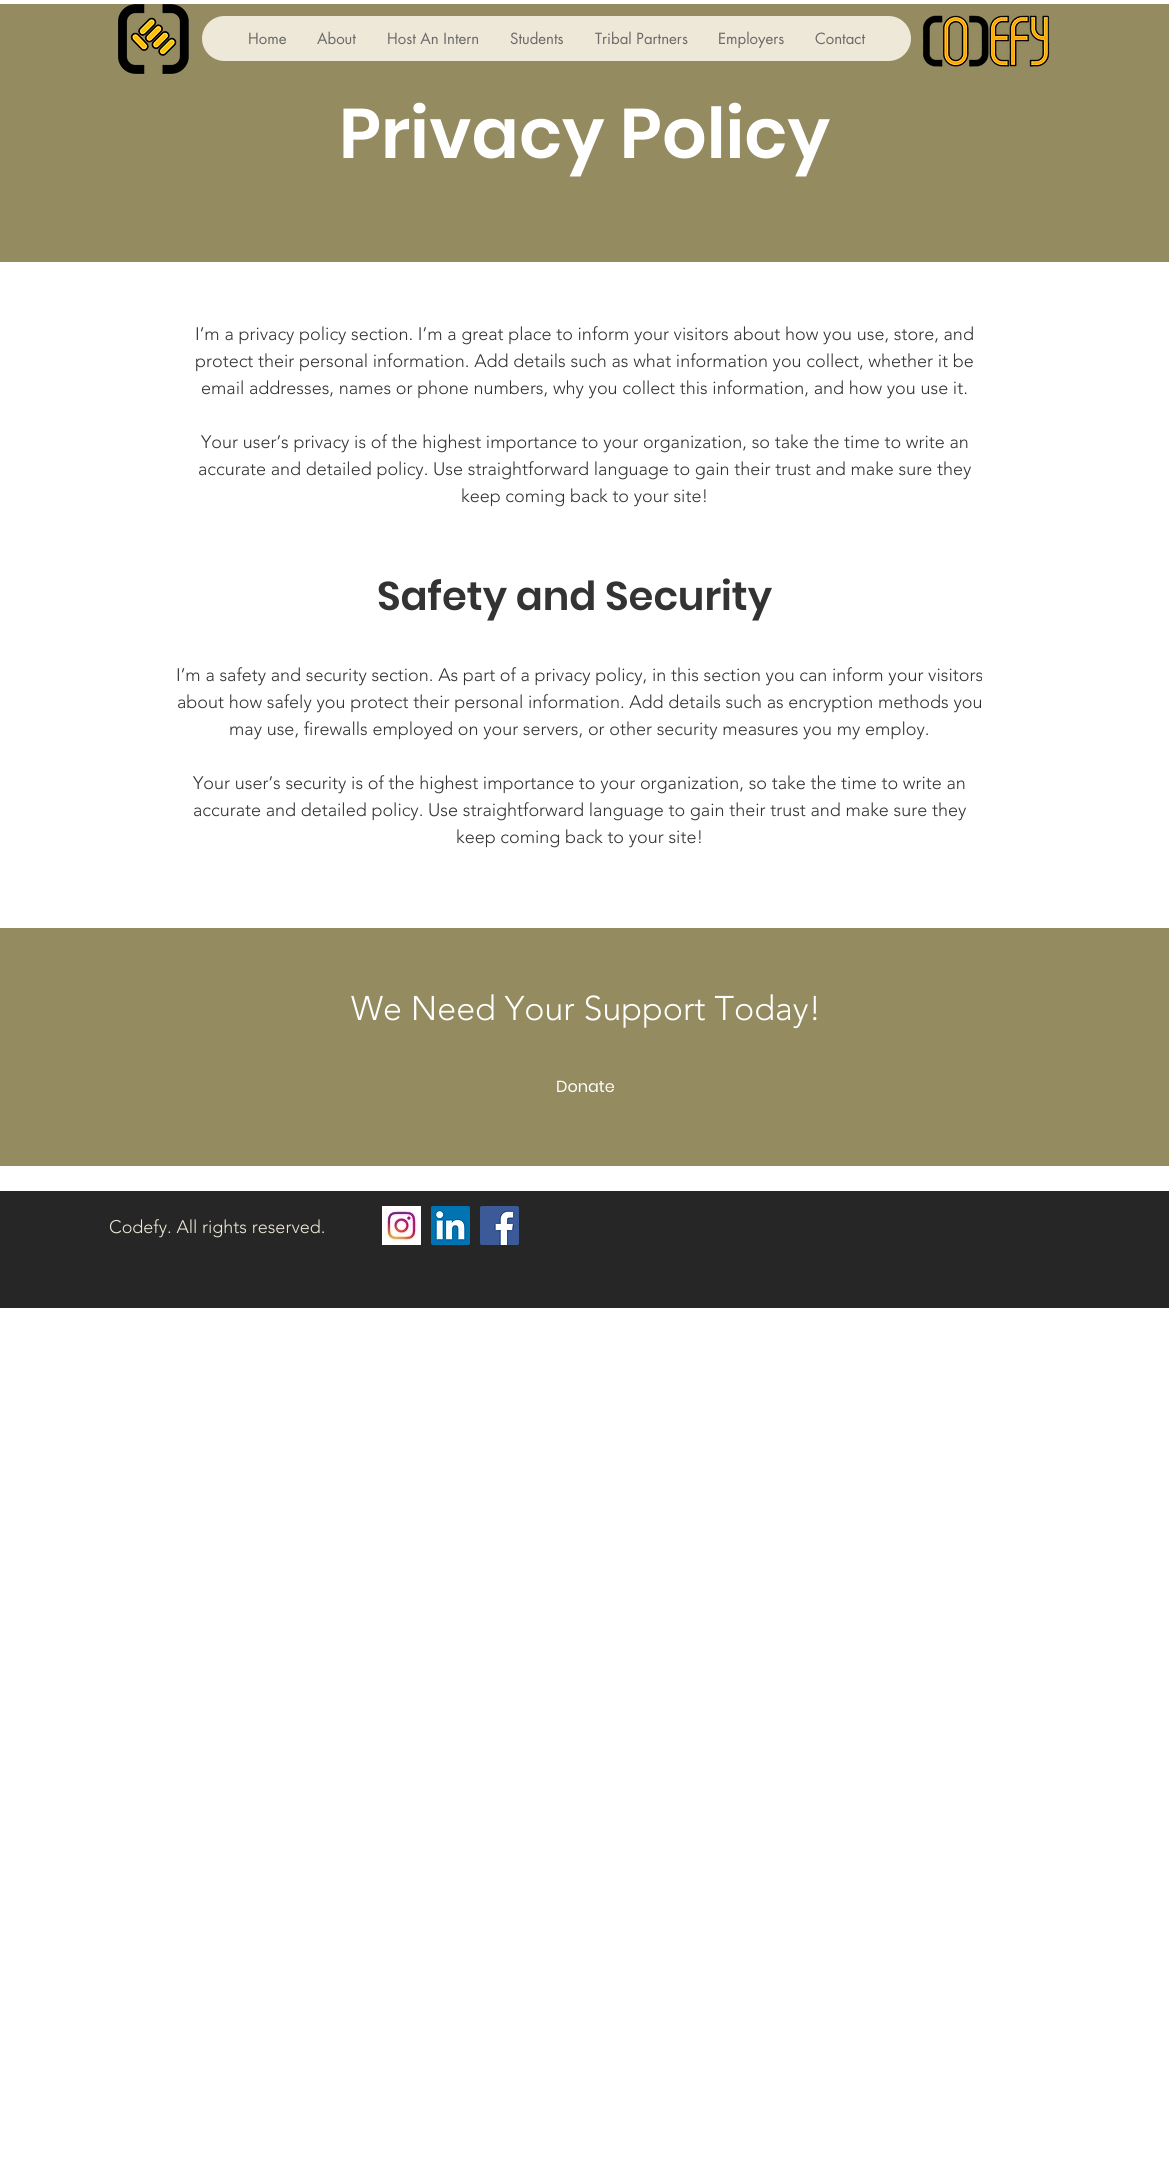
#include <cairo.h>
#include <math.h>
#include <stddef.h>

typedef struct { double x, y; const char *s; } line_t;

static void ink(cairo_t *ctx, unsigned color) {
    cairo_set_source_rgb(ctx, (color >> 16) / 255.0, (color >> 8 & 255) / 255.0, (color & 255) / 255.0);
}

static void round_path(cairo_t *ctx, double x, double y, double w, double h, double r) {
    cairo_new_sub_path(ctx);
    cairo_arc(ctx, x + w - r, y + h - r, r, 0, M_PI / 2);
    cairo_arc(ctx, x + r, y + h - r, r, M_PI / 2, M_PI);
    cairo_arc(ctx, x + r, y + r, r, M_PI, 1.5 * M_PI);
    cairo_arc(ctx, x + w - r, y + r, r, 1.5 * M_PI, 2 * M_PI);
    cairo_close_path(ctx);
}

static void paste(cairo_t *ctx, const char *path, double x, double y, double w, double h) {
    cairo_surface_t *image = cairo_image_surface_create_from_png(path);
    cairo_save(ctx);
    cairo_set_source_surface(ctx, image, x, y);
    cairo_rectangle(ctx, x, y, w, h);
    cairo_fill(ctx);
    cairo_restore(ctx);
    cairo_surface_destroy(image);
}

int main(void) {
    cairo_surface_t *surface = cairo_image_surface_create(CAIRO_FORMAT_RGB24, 1169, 2162);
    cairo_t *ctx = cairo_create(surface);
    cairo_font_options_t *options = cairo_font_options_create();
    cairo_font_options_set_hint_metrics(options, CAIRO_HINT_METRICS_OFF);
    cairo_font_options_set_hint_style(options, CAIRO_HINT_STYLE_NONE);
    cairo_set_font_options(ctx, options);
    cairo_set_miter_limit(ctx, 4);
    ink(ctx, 0xFFFFFF);
    cairo_paint(ctx);
    ink(ctx, 0x948B60);
    cairo_rectangle(ctx, 0, 4, 1169, 258);
    cairo_fill(ctx);
    paste(ctx, "media/1.png", 118, 4, 71, 71);
    ink(ctx, 0xEEE8D8);
    round_path(ctx, 202, 16, 709, 45, 22.5);
    cairo_fill(ctx);
    cairo_select_font_face(ctx, "futura", CAIRO_FONT_SLANT_NORMAL, CAIRO_FONT_WEIGHT_NORMAL);
    cairo_set_font_size(ctx, 15);
    ink(ctx, 0x696969);
    {
        static const line_t items[] = {
            {248, 44, "Home"},
            {317, 44, "About"},
            {387, 44, "Host An Intern"},
            {510, 44, "Students"},
            {595, 44, "Tribal Partners"},
            {718, 44, "Employers"},
            {815, 44, "Contact"},
        };
        for (size_t i = 0; i < sizeof items / sizeof *items; i++) {
            cairo_move_to(ctx, items[i].x, items[i].y);
            cairo_show_text(ctx, items[i].s);
        }
    }
    paste(ctx, "media/2.png", 922, 15, 128, 52);
    cairo_select_font_face(ctx, "Poppins SemiBold", CAIRO_FONT_SLANT_NORMAL, CAIRO_FONT_WEIGHT_NORMAL);
    cairo_set_font_size(ctx, 70);
    ink(ctx, 0xFFFFFF);
    cairo_move_to(ctx, 339, 158);
    cairo_show_text(ctx, "Privacy Policy");
    cairo_select_font_face(ctx, "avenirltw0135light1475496 Light", CAIRO_FONT_SLANT_NORMAL, CAIRO_FONT_WEIGHT_NORMAL);
    cairo_set_font_size(ctx, 18);
    ink(ctx, 0x333333);
    {
        static const line_t items[] = {
            {195, 340, "I’m a privacy policy section. I’m a great place to inform your visitors about how you use, store, and"},
            {195, 367, "protect their personal information. Add details such as what information you collect, whether it be"},
            {201, 394, "email addresses, names or phone numbers, why you collect this information, and how you use it."},
            {201, 448, "Your user’s privacy is of the highest importance to your organization, so take the time to write an"},
            {198, 475, "accurate and detailed policy. Use straightforward language to gain their trust and make sure they"},
            {461, 502, "keep coming back to your site!"},
        };
        for (size_t i = 0; i < sizeof items / sizeof *items; i++) {
            cairo_move_to(ctx, items[i].x, items[i].y);
            cairo_show_text(ctx, items[i].s);
        }
    }
    cairo_select_font_face(ctx, "Poppins SemiBold", CAIRO_FONT_SLANT_NORMAL, CAIRO_FONT_WEIGHT_NORMAL);
    cairo_set_font_size(ctx, 40);
    cairo_move_to(ctx, 377, 610);
    cairo_show_text(ctx, "Safety and Security");
    cairo_select_font_face(ctx, "avenirltw0135light1475496 Light", CAIRO_FONT_SLANT_NORMAL, CAIRO_FONT_WEIGHT_NORMAL);
    cairo_set_font_size(ctx, 18);
    {
        static const line_t items[] = {
            {176, 681, "I’m a safety and security section. As part of a privacy policy, in this section you can inform your visitors"},
            {177, 708, "about how safely you protect their personal information. Add details such as encryption methods you"},
            {229, 735, "may use, firewalls employed on your servers, or other security measures you my employ."},
            {193, 789, "Your user’s security is of the highest importance to your organization, so take the time to write an"},
            {193, 816, "accurate and detailed policy. Use straightforward language to gain their trust and make sure they"},
            {456, 843, "keep coming back to your site!"},
        };
        for (size_t i = 0; i < sizeof items / sizeof *items; i++) {
            cairo_move_to(ctx, items[i].x, items[i].y);
            cairo_show_text(ctx, items[i].s);
        }
    }
    ink(ctx, 0x948B60);
    cairo_rectangle(ctx, 0, 928, 1169, 238);
    cairo_fill(ctx);
    cairo_set_font_size(ctx, 34);
    ink(ctx, 0xFFFFFF);
    cairo_move_to(ctx, 351, 1020);
    cairo_show_text(ctx, "We Need Your Support Today!");
    cairo_select_font_face(ctx, "Poppins", CAIRO_FONT_SLANT_NORMAL, CAIRO_FONT_WEIGHT_NORMAL);
    cairo_set_font_size(ctx, 16);
    cairo_move_to(ctx, 556, 1092);
    cairo_show_text(ctx, "Donate");
    ink(ctx, 0x262626);
    cairo_rectangle(ctx, 0, 1191, 1169, 117);
    cairo_fill(ctx);
    cairo_select_font_face(ctx, "avenirltw0135light1475496 Light", CAIRO_FONT_SLANT_NORMAL, CAIRO_FONT_WEIGHT_NORMAL);
    cairo_set_font_size(ctx, 18);
    ink(ctx, 0xEEE8D8);
    cairo_move_to(ctx, 109, 1233);
    cairo_show_text(ctx, "Codefy. All rights reserved.");
    paste(ctx, "media/3.png", 382, 1206, 39, 39);
    paste(ctx, "media/4.png", 431, 1206, 39, 39);
    paste(ctx, "media/5.png", 480, 1206, 39, 39);
    cairo_surface_write_to_png(surface, "image.png");
    cairo_font_options_destroy(options);
    cairo_destroy(ctx);
    cairo_surface_destroy(surface);
    return 0;
}
